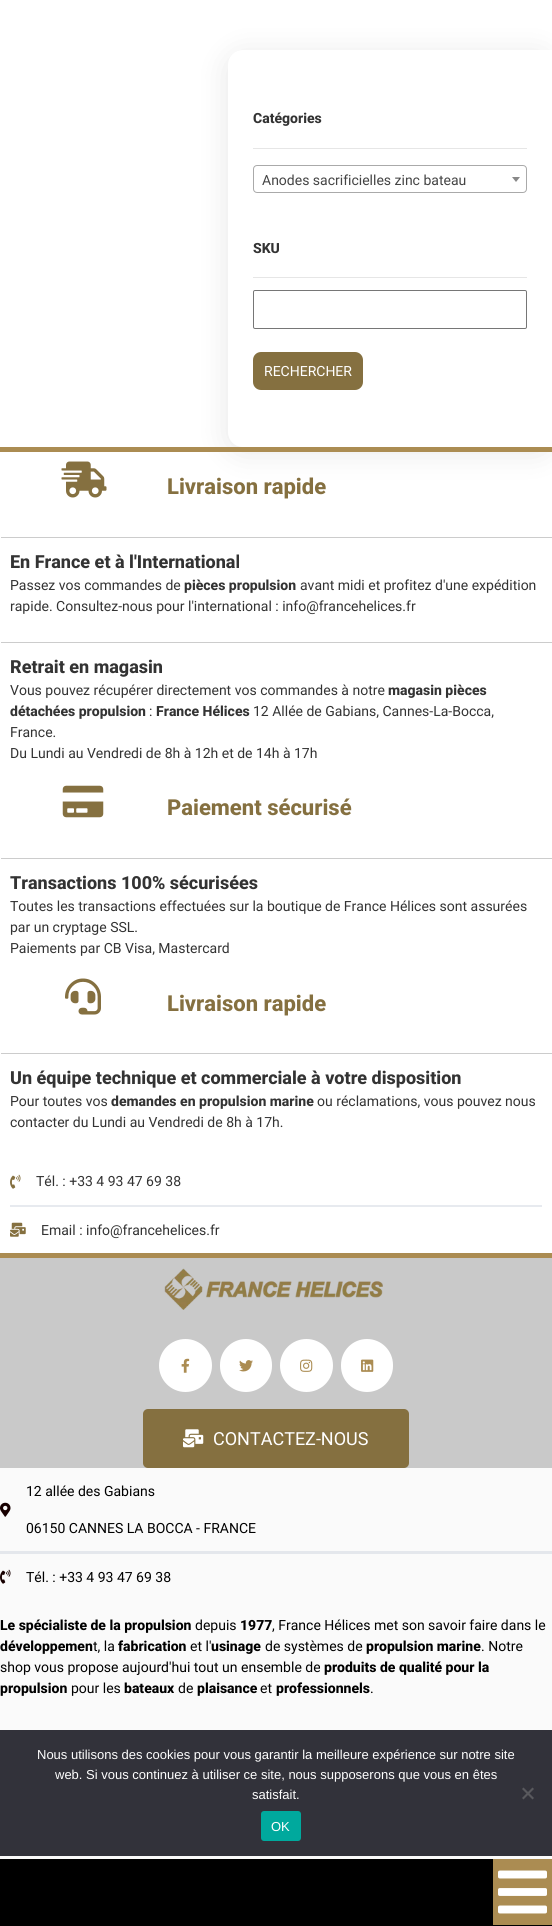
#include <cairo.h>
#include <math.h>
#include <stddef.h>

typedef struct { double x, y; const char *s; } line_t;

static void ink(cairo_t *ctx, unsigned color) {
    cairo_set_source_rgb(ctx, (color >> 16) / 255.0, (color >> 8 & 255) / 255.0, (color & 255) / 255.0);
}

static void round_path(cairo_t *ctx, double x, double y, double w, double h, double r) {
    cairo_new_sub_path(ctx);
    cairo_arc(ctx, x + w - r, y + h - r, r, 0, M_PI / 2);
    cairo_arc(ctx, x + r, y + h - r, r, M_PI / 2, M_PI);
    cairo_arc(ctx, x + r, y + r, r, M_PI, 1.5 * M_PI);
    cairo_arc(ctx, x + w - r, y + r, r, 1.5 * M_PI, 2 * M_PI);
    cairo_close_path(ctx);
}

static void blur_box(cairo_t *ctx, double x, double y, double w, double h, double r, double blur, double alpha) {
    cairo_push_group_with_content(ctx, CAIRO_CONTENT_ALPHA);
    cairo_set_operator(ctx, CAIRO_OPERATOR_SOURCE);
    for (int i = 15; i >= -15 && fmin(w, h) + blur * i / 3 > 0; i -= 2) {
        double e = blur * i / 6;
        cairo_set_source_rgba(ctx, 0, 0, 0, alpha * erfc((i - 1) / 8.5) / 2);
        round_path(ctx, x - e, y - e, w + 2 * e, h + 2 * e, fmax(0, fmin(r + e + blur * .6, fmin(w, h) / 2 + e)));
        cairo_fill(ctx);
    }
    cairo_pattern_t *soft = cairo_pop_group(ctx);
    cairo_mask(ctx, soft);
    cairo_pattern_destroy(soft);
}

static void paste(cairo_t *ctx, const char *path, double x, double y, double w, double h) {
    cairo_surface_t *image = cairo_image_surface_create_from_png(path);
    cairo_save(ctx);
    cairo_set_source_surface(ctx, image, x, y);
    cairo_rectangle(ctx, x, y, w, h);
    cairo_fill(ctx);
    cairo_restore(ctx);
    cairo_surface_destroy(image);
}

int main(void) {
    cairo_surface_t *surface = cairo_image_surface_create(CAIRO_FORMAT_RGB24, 552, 1926);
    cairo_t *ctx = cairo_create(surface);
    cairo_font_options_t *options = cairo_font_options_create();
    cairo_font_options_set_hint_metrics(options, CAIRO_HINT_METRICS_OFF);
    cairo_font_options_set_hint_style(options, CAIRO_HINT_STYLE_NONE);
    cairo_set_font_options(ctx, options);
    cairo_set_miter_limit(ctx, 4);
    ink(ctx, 0xFFFFFF);
    cairo_paint(ctx);
    ink(ctx, 0x000000);
    blur_box(ctx, 228, 55, 324, 397, 15, 15, 0.1);
    ink(ctx, 0xFFFFFF);
    cairo_new_path(ctx);
    cairo_move_to(ctx, 243, 50);
    cairo_line_to(ctx, 552, 50);
    cairo_line_to(ctx, 552, 447);
    cairo_line_to(ctx, 243, 447);
    cairo_curve_to(ctx, 234.5, 447, 228, 440.5, 228, 432);
    cairo_line_to(ctx, 228, 65);
    cairo_curve_to(ctx, 228, 56.5, 234.5, 50, 243, 50);
    cairo_close_path(ctx);
    cairo_fill(ctx);
    ink(ctx, 0xE6E6E6);
    cairo_rectangle(ctx, 253, 148, 274, 1);
    cairo_fill(ctx);
    cairo_select_font_face(ctx, "Roboto ExtraBold", CAIRO_FONT_SLANT_NORMAL, CAIRO_FONT_WEIGHT_NORMAL);
    cairo_set_font_size(ctx, 14);
    ink(ctx, 0x333333);
    cairo_move_to(ctx, 253, 123);
    cairo_show_text(ctx, "Catégories");
    round_path(ctx, 253.5, 165.5, 273, 27, 3.5);
    ink(ctx, 0xAAAAAA);
    cairo_set_line_width(ctx, 1);
    cairo_stroke(ctx);
    cairo_select_font_face(ctx, "Roboto", CAIRO_FONT_SLANT_NORMAL, CAIRO_FONT_WEIGHT_NORMAL);
    ink(ctx, 0x444444);
    cairo_move_to(ctx, 262, 185);
    cairo_show_text(ctx, "Anodes sacrificielles zinc bateau");
    ink(ctx, 0x888888);
    cairo_new_path(ctx);
    cairo_move_to(ctx, 512, 177);
    cairo_line_to(ctx, 520, 177);
    cairo_line_to(ctx, 516, 182);
    cairo_close_path(ctx);
    cairo_fill(ctx);
    ink(ctx, 0xE6E6E6);
    cairo_rectangle(ctx, 253, 277, 274, 1);
    cairo_fill(ctx);
    cairo_select_font_face(ctx, "Roboto ExtraBold", CAIRO_FONT_SLANT_NORMAL, CAIRO_FONT_WEIGHT_NORMAL);
    ink(ctx, 0x333333);
    cairo_move_to(ctx, 253, 253);
    cairo_show_text(ctx, "SKU");
    round_path(ctx, 253.5, 290.5, 273, 38, 1.5);
    ink(ctx, 0x767676);
    cairo_stroke(ctx);
    ink(ctx, 0x857040);
    round_path(ctx, 253, 352, 110, 38, 8);
    cairo_fill(ctx);
    cairo_select_font_face(ctx, "Roboto", CAIRO_FONT_SLANT_NORMAL, CAIRO_FONT_WEIGHT_NORMAL);
    ink(ctx, 0xFFFFFF);
    cairo_move_to(ctx, 264, 376);
    cairo_show_text(ctx, "RECHERCHER");
    ink(ctx, 0xAB8C52);
    cairo_rectangle(ctx, 0, 447, 552, 5);
    cairo_fill(ctx);
    paste(ctx, "media/1.png", 61, 461, 46, 37);
    cairo_select_font_face(ctx, "Roboto ExtraBold", CAIRO_FONT_SLANT_NORMAL, CAIRO_FONT_WEIGHT_NORMAL);
    cairo_set_font_size(ctx, 22);
    ink(ctx, 0x857040);
    cairo_move_to(ctx, 167, 494);
    cairo_show_text(ctx, "Livraison rapide");
    ink(ctx, 0xCCCCCC);
    cairo_rectangle(ctx, 1, 537, 551, 1);
    cairo_fill(ctx);
    cairo_set_font_size(ctx, 18);
    ink(ctx, 0x333333);
    cairo_move_to(ctx, 10, 568);
    cairo_show_text(ctx, "En France et à l'International");
    cairo_select_font_face(ctx, "Roboto", CAIRO_FONT_SLANT_NORMAL, CAIRO_FONT_WEIGHT_NORMAL);
    cairo_set_font_size(ctx, 14);
    cairo_move_to(ctx, 10, 590);
    cairo_show_text(ctx, "Passez vos commandes de");
    cairo_select_font_face(ctx, "Roboto ExtraBold", CAIRO_FONT_SLANT_NORMAL, CAIRO_FONT_WEIGHT_NORMAL);
    cairo_move_to(ctx, 184, 590);
    cairo_show_text(ctx, "pièces propulsion");
    cairo_select_font_face(ctx, "Roboto", CAIRO_FONT_SLANT_NORMAL, CAIRO_FONT_WEIGHT_NORMAL);
    cairo_move_to(ctx, 300, 590);
    cairo_show_text(ctx, "avant midi et profitez d'une expédition");
    cairo_move_to(ctx, 10, 611);
    cairo_show_text(ctx, "rapide. Consultez-nous pour l'international : info@francehelices.fr");
    ink(ctx, 0xCCCCCC);
    cairo_rectangle(ctx, 1, 642, 551, 1);
    cairo_fill(ctx);
    cairo_select_font_face(ctx, "Roboto ExtraBold", CAIRO_FONT_SLANT_NORMAL, CAIRO_FONT_WEIGHT_NORMAL);
    cairo_set_font_size(ctx, 18);
    ink(ctx, 0x333333);
    cairo_move_to(ctx, 10, 673);
    cairo_show_text(ctx, "Retrait en magasin");
    cairo_select_font_face(ctx, "Roboto", CAIRO_FONT_SLANT_NORMAL, CAIRO_FONT_WEIGHT_NORMAL);
    cairo_set_font_size(ctx, 14);
    cairo_move_to(ctx, 10, 695);
    cairo_show_text(ctx, "Vous pouvez récupérer directement vos commandes à notre");
    cairo_select_font_face(ctx, "Roboto ExtraBold", CAIRO_FONT_SLANT_NORMAL, CAIRO_FONT_WEIGHT_NORMAL);
    cairo_move_to(ctx, 388, 695);
    cairo_show_text(ctx, "magasin pièces");
    cairo_move_to(ctx, 10, 716);
    cairo_show_text(ctx, "détachées propulsion");
    cairo_select_font_face(ctx, "Roboto", CAIRO_FONT_SLANT_NORMAL, CAIRO_FONT_WEIGHT_NORMAL);
    cairo_move_to(ctx, 149, 716);
    cairo_show_text(ctx, ":");
    cairo_select_font_face(ctx, "Roboto ExtraBold", CAIRO_FONT_SLANT_NORMAL, CAIRO_FONT_WEIGHT_NORMAL);
    cairo_move_to(ctx, 156, 716);
    cairo_show_text(ctx, "France Hélices");
    cairo_select_font_face(ctx, "Roboto", CAIRO_FONT_SLANT_NORMAL, CAIRO_FONT_WEIGHT_NORMAL);
    {
        static const line_t items[] = {
            {253, 716, "12 Allée de Gabians, Cannes-La-Bocca,"},
            {10, 737, "France."},
            {10, 758, "Du Lundi au Vendredi de 8h à 12h et de 14h à 17h"},
        };
        for (size_t i = 0; i < sizeof items / sizeof *items; i++) {
            cairo_move_to(ctx, items[i].x, items[i].y);
            cairo_show_text(ctx, items[i].s);
        }
    }
    paste(ctx, "media/2.png", 62, 785, 42, 33);
    cairo_select_font_face(ctx, "Roboto ExtraBold", CAIRO_FONT_SLANT_NORMAL, CAIRO_FONT_WEIGHT_NORMAL);
    cairo_set_font_size(ctx, 22);
    ink(ctx, 0x857040);
    cairo_move_to(ctx, 167, 815);
    cairo_show_text(ctx, "Paiement sécurisé");
    ink(ctx, 0xCCCCCC);
    cairo_rectangle(ctx, 1, 858, 551, 1);
    cairo_fill(ctx);
    cairo_set_font_size(ctx, 18);
    ink(ctx, 0x333333);
    cairo_move_to(ctx, 10, 889);
    cairo_show_text(ctx, "Transactions 100% sécurisées");
    cairo_select_font_face(ctx, "Roboto", CAIRO_FONT_SLANT_NORMAL, CAIRO_FONT_WEIGHT_NORMAL);
    cairo_set_font_size(ctx, 14);
    {
        static const line_t items[] = {
            {10, 911, "Toutes les transactions effectuées sur la boutique de France Hélices sont assurées"},
            {10, 932, "par un cryptage SSL."},
            {10, 953, "Paiements par CB Visa, Mastercard"},
        };
        for (size_t i = 0; i < sizeof items / sizeof *items; i++) {
            cairo_move_to(ctx, items[i].x, items[i].y);
            cairo_show_text(ctx, items[i].s);
        }
    }
    paste(ctx, "media/3.png", 65, 978, 36, 37);
    cairo_select_font_face(ctx, "Roboto ExtraBold", CAIRO_FONT_SLANT_NORMAL, CAIRO_FONT_WEIGHT_NORMAL);
    cairo_set_font_size(ctx, 22);
    ink(ctx, 0x857040);
    cairo_move_to(ctx, 167, 1011);
    cairo_show_text(ctx, "Livraison rapide");
    ink(ctx, 0xCCCCCC);
    cairo_rectangle(ctx, 1, 1053, 551, 1);
    cairo_fill(ctx);
    cairo_set_font_size(ctx, 18);
    ink(ctx, 0x333333);
    cairo_move_to(ctx, 10, 1084);
    cairo_show_text(ctx, "Un équipe technique et commerciale à votre disposition");
    cairo_select_font_face(ctx, "Roboto", CAIRO_FONT_SLANT_NORMAL, CAIRO_FONT_WEIGHT_NORMAL);
    cairo_set_font_size(ctx, 14);
    cairo_move_to(ctx, 10, 1106);
    cairo_show_text(ctx, "Pour toutes vos");
    cairo_select_font_face(ctx, "Roboto ExtraBold", CAIRO_FONT_SLANT_NORMAL, CAIRO_FONT_WEIGHT_NORMAL);
    cairo_move_to(ctx, 111, 1106);
    cairo_show_text(ctx, "demandes en propulsion marine");
    cairo_select_font_face(ctx, "Roboto", CAIRO_FONT_SLANT_NORMAL, CAIRO_FONT_WEIGHT_NORMAL);
    cairo_move_to(ctx, 317, 1106);
    cairo_show_text(ctx, "ou réclamations, vous pouvez nous");
    cairo_move_to(ctx, 10, 1127);
    cairo_show_text(ctx, "contacter du Lundi au Vendredi de 8h à 17h.");
    ink(ctx, 0xE7EAEF);
    cairo_rectangle(ctx, 10, 1205, 532, 2);
    cairo_fill(ctx);
    paste(ctx, "media/4.png", 10, 1174, 11, 15);
    ink(ctx, 0x333333);
    cairo_move_to(ctx, 36, 1186);
    cairo_show_text(ctx, "Tél. : +33 4 93 47 69 38");
    paste(ctx, "media/5.png", 10, 1222, 16, 15);
    cairo_move_to(ctx, 41, 1235);
    cairo_show_text(ctx, "Email : info@francehelices.fr");
    ink(ctx, 0xC9C9C9);
    cairo_rectangle(ctx, 0, 1258, 552, 210);
    cairo_fill(ctx);
    ink(ctx, 0xAB8C52);
    cairo_rectangle(ctx, 0, 1253, 552, 5);
    cairo_fill(ctx);
    paste(ctx, "media/6.png", 164, 1268, 219, 42);
    ink(ctx, 0xFFFFFF);
    cairo_arc(ctx, 185.5, 1365.5, 26.5, 0, 2 * M_PI);
    cairo_fill(ctx);
    paste(ctx, "media/7.png", 181, 1358, 9, 15);
    round_path(ctx, 220, 1339, 52, 53, 26);
    cairo_fill(ctx);
    paste(ctx, "media/8.png", 239, 1360, 14, 12);
    cairo_arc(ctx, 306.5, 1365.5, 26.5, 0, 2 * M_PI);
    cairo_fill(ctx);
    paste(ctx, "media/9.png", 300, 1359, 13, 13);
    round_path(ctx, 341, 1339, 52, 53, 26);
    cairo_fill(ctx);
    paste(ctx, "media/10.png", 361, 1359, 13, 13);
    ink(ctx, 0x857040);
    round_path(ctx, 143, 1409, 266, 59, 5);
    cairo_fill(ctx);
    paste(ctx, "media/11.png", 183, 1429, 21, 19);
    cairo_set_font_size(ctx, 18);
    ink(ctx, 0xFFFFFF);
    cairo_move_to(ctx, 213, 1445);
    cairo_show_text(ctx, "CONTACTEZ-NOUS");
    ink(ctx, 0xFAFAFA);
    cairo_rectangle(ctx, 0, 1468, 552, 391);
    cairo_fill(ctx);
    ink(ctx, 0xE4E7EC);
    cairo_rectangle(ctx, 0, 1551, 552, 3);
    cairo_fill(ctx);
    paste(ctx, "media/12.png", 0, 1502, 11, 15);
    cairo_set_font_size(ctx, 14);
    ink(ctx, 0x000000);
    cairo_move_to(ctx, 26, 1496);
    cairo_show_text(ctx, "12 allée des Gabians");
    cairo_move_to(ctx, 26, 1533);
    cairo_show_text(ctx, "06150 CANNES LA BOCCA - FRANCE");
    paste(ctx, "media/13.png", 0, 1569, 11, 15);
    cairo_move_to(ctx, 26, 1582);
    cairo_show_text(ctx, "Tél. : +33 4 93 47 69 38");
    cairo_select_font_face(ctx, "Roboto ExtraBold", CAIRO_FONT_SLANT_NORMAL, CAIRO_FONT_WEIGHT_NORMAL);
    cairo_move_to(ctx, 0, 1630);
    cairo_show_text(ctx, "Le spécialiste de la propulsion");
    cairo_select_font_face(ctx, "Roboto", CAIRO_FONT_SLANT_NORMAL, CAIRO_FONT_WEIGHT_NORMAL);
    cairo_move_to(ctx, 195, 1630);
    cairo_show_text(ctx, "depuis");
    cairo_select_font_face(ctx, "Roboto ExtraBold", CAIRO_FONT_SLANT_NORMAL, CAIRO_FONT_WEIGHT_NORMAL);
    cairo_move_to(ctx, 240, 1630);
    cairo_show_text(ctx, "1977");
    cairo_select_font_face(ctx, "Roboto", CAIRO_FONT_SLANT_NORMAL, CAIRO_FONT_WEIGHT_NORMAL);
    cairo_move_to(ctx, 272, 1630);
    cairo_show_text(ctx, ", France Hélices met son savoir faire dans le");
    cairo_select_font_face(ctx, "Roboto ExtraBold", CAIRO_FONT_SLANT_NORMAL, CAIRO_FONT_WEIGHT_NORMAL);
    cairo_move_to(ctx, 0, 1651);
    cairo_show_text(ctx, "développemen");
    cairo_select_font_face(ctx, "Roboto", CAIRO_FONT_SLANT_NORMAL, CAIRO_FONT_WEIGHT_NORMAL);
    cairo_move_to(ctx, 93, 1651);
    cairo_show_text(ctx, "t, la");
    cairo_select_font_face(ctx, "Roboto ExtraBold", CAIRO_FONT_SLANT_NORMAL, CAIRO_FONT_WEIGHT_NORMAL);
    cairo_move_to(ctx, 118, 1651);
    cairo_show_text(ctx, "fabrication");
    cairo_select_font_face(ctx, "Roboto", CAIRO_FONT_SLANT_NORMAL, CAIRO_FONT_WEIGHT_NORMAL);
    cairo_move_to(ctx, 190, 1651);
    cairo_show_text(ctx, "et l'");
    cairo_select_font_face(ctx, "Roboto ExtraBold", CAIRO_FONT_SLANT_NORMAL, CAIRO_FONT_WEIGHT_NORMAL);
    cairo_move_to(ctx, 211, 1651);
    cairo_show_text(ctx, "usinage");
    cairo_select_font_face(ctx, "Roboto", CAIRO_FONT_SLANT_NORMAL, CAIRO_FONT_WEIGHT_NORMAL);
    cairo_move_to(ctx, 265, 1651);
    cairo_show_text(ctx, "de systèmes de");
    cairo_select_font_face(ctx, "Roboto ExtraBold", CAIRO_FONT_SLANT_NORMAL, CAIRO_FONT_WEIGHT_NORMAL);
    cairo_move_to(ctx, 366, 1651);
    cairo_show_text(ctx, "propulsion marine");
    cairo_select_font_face(ctx, "Roboto", CAIRO_FONT_SLANT_NORMAL, CAIRO_FONT_WEIGHT_NORMAL);
    cairo_move_to(ctx, 481, 1651);
    cairo_show_text(ctx, ". Notre");
    cairo_move_to(ctx, 0, 1672);
    cairo_show_text(ctx, "shop vous propose aujourd'hui tout un ensemble de");
    cairo_select_font_face(ctx, "Roboto ExtraBold", CAIRO_FONT_SLANT_NORMAL, CAIRO_FONT_WEIGHT_NORMAL);
    cairo_move_to(ctx, 324, 1672);
    cairo_show_text(ctx, "produits de qualité pour la");
    cairo_move_to(ctx, 0, 1693);
    cairo_show_text(ctx, "propulsion");
    cairo_select_font_face(ctx, "Roboto", CAIRO_FONT_SLANT_NORMAL, CAIRO_FONT_WEIGHT_NORMAL);
    cairo_move_to(ctx, 71, 1693);
    cairo_show_text(ctx, "pour les");
    cairo_select_font_face(ctx, "Roboto ExtraBold", CAIRO_FONT_SLANT_NORMAL, CAIRO_FONT_WEIGHT_NORMAL);
    cairo_move_to(ctx, 124, 1693);
    cairo_show_text(ctx, "bateaux");
    cairo_select_font_face(ctx, "Roboto", CAIRO_FONT_SLANT_NORMAL, CAIRO_FONT_WEIGHT_NORMAL);
    cairo_move_to(ctx, 178, 1693);
    cairo_show_text(ctx, "de");
    cairo_select_font_face(ctx, "Roboto ExtraBold", CAIRO_FONT_SLANT_NORMAL, CAIRO_FONT_WEIGHT_NORMAL);
    cairo_move_to(ctx, 197, 1693);
    cairo_show_text(ctx, "plaisance");
    cairo_select_font_face(ctx, "Roboto", CAIRO_FONT_SLANT_NORMAL, CAIRO_FONT_WEIGHT_NORMAL);
    cairo_move_to(ctx, 260, 1693);
    cairo_show_text(ctx, "et");
    cairo_select_font_face(ctx, "Roboto ExtraBold", CAIRO_FONT_SLANT_NORMAL, CAIRO_FONT_WEIGHT_NORMAL);
    cairo_move_to(ctx, 276, 1693);
    cairo_show_text(ctx, "professionnels");
    cairo_select_font_face(ctx, "Roboto", CAIRO_FONT_SLANT_NORMAL, CAIRO_FONT_WEIGHT_NORMAL);
    cairo_move_to(ctx, 370, 1693);
    cairo_show_text(ctx, ".");
    ink(ctx, 0x32323A);
    cairo_rectangle(ctx, 0, 1730, 552, 126);
    cairo_fill(ctx);
    cairo_select_font_face(ctx, "Liberation Sans", CAIRO_FONT_SLANT_NORMAL, CAIRO_FONT_WEIGHT_NORMAL);
    cairo_set_font_size(ctx, 13);
    ink(ctx, 0xFFFFFF);
    {
        static const line_t items[] = {
            {37, 1759, "Nous utilisons des cookies pour vous garantir la meilleure expérience sur notre site"},
            {55, 1779, "web. Si vous continuez à utiliser ce site, nous supposerons que vous en êtes"},
            {252, 1799, "satisfait."},
        };
        for (size_t i = 0; i < sizeof items / sizeof *items; i++) {
            cairo_move_to(ctx, items[i].x, items[i].y);
            cairo_show_text(ctx, items[i].s);
        }
    }
    ink(ctx, 0x59595D);
    cairo_new_path(ctx);
    cairo_move_to(ctx, 532.5, 1787.5);
    cairo_line_to(ctx, 534, 1789);
    cairo_line_to(ctx, 523.5, 1799.5);
    cairo_line_to(ctx, 522, 1798);
    cairo_close_path(ctx);
    cairo_fill(ctx);
    cairo_new_path(ctx);
    cairo_move_to(ctx, 522, 1789);
    cairo_line_to(ctx, 523.5, 1787.5);
    cairo_line_to(ctx, 534, 1798);
    cairo_line_to(ctx, 532.5, 1799.5);
    cairo_close_path(ctx);
    cairo_fill(ctx);
    ink(ctx, 0x00A99D);
    round_path(ctx, 261, 1811, 40, 30, 3);
    cairo_fill(ctx);
    ink(ctx, 0xFFFFFF);
    cairo_move_to(ctx, 271, 1831);
    cairo_show_text(ctx, "OK");
    ink(ctx, 0x000000);
    cairo_rectangle(ctx, 0, 1859, 552, 67);
    cairo_fill(ctx);
    ink(ctx, 0xAB8C52);
    cairo_rectangle(ctx, 493, 1859, 59, 66);
    cairo_fill(ctx);
    paste(ctx, "media/14.png", 498, 1870, 49, 44);
    cairo_surface_write_to_png(surface, "image.png");
    cairo_font_options_destroy(options);
    cairo_destroy(ctx);
    cairo_surface_destroy(surface);
    return 0;
}
